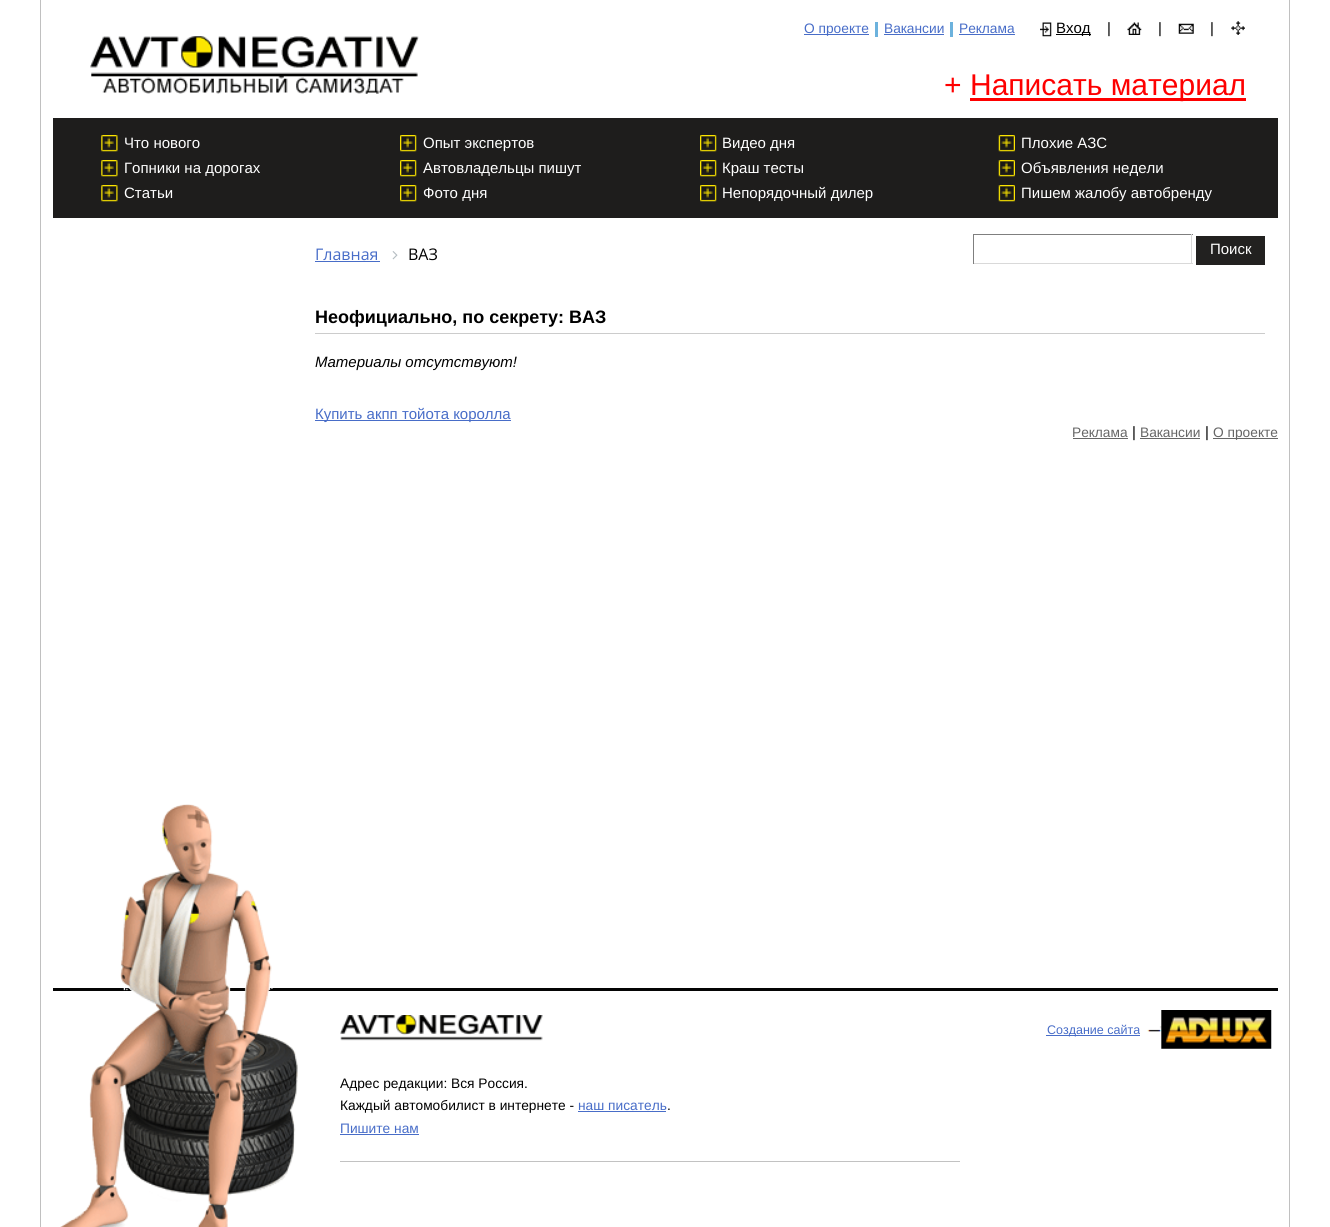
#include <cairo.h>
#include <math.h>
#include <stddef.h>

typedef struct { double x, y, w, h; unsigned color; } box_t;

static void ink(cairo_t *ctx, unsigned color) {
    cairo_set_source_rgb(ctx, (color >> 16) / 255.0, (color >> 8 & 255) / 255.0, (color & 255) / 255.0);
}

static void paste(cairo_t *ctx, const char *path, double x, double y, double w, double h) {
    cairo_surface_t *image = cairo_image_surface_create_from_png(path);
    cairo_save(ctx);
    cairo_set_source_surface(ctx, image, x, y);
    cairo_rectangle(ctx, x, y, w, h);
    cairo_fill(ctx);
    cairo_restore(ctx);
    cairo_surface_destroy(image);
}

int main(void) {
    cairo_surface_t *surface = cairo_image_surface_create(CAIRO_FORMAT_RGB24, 1330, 1227);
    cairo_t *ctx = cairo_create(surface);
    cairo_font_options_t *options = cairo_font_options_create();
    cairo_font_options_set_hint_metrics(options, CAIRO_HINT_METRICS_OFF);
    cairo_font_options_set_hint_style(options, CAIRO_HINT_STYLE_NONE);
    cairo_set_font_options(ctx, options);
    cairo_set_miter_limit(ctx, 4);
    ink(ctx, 0xFFFFFF);
    cairo_paint(ctx);
    {
        static const box_t items[] = {
            {1289, 0, 1, 1227, 0xC0C0C0},
            {40, 0, 1, 1227, 0xC0C0C0},
            {804, 34, 65, 1, 0x486DC8},
        };
        for (size_t i = 0; i < sizeof items / sizeof *items; i++) {
            ink(ctx, items[i].color);
            cairo_rectangle(ctx, items[i].x, items[i].y, items[i].w, items[i].h);
            cairo_fill(ctx);
        }
    }
    cairo_select_font_face(ctx, "Liberation Sans", CAIRO_FONT_SLANT_NORMAL, CAIRO_FONT_WEIGHT_NORMAL);
    cairo_set_font_size(ctx, 13.75);
    cairo_move_to(ctx, 804, 33);
    cairo_show_text(ctx, "О проекте");
    ink(ctx, 0x6CB2DD);
    cairo_rectangle(ctx, 875, 22, 3, 15);
    cairo_fill(ctx);
    ink(ctx, 0x486DC8);
    cairo_move_to(ctx, 884, 33);
    cairo_show_text(ctx, "Вакансии");
    cairo_rectangle(ctx, 884, 34, 60, 1);
    cairo_fill(ctx);
    ink(ctx, 0x6CB2DD);
    cairo_rectangle(ctx, 950, 22, 3, 15);
    cairo_fill(ctx);
    ink(ctx, 0x486DC8);
    cairo_move_to(ctx, 959, 33);
    cairo_show_text(ctx, "Реклама");
    cairo_rectangle(ctx, 959, 34, 56, 1);
    cairo_fill(ctx);
    paste(ctx, "media/1.png", 1040, 22, 12, 15);
    ink(ctx, 0x000000);
    cairo_rectangle(ctx, 1056, 34, 35, 1);
    cairo_fill(ctx);
    cairo_set_font_size(ctx, 15);
    cairo_move_to(ctx, 1056, 33);
    cairo_show_text(ctx, "Вход");
    cairo_move_to(ctx, 1107, 33);
    cairo_show_text(ctx, "|");
    paste(ctx, "media/2.png", 1127, 22, 15, 13);
    cairo_move_to(ctx, 1158, 33);
    cairo_show_text(ctx, "|");
    paste(ctx, "media/3.png", 1178, 23, 16, 11);
    cairo_move_to(ctx, 1210, 33);
    cairo_show_text(ctx, "|");
    paste(ctx, "media/4.png", 1231, 21, 14, 14);
    paste(ctx, "media/5.png", 90, 36, 329, 58);
    cairo_set_font_size(ctx, 30);
    ink(ctx, 0xFE0000);
    cairo_move_to(ctx, 944, 95);
    cairo_show_text(ctx, "+");
    cairo_rectangle(ctx, 970, 98, 276, 3);
    cairo_fill(ctx);
    cairo_move_to(ctx, 970, 95);
    cairo_show_text(ctx, "Написать материал");
    ink(ctx, 0x1E1D1C);
    cairo_rectangle(ctx, 53, 118, 1225, 100);
    cairo_fill(ctx);
    paste(ctx, "media/6.png", 101, 135, 17, 17);
    cairo_set_font_size(ctx, 15);
    ink(ctx, 0xFFFFFF);
    cairo_move_to(ctx, 124, 148);
    cairo_show_text(ctx, "Что нового");
    paste(ctx, "media/6.png", 101, 160, 17, 17);
    cairo_move_to(ctx, 124, 173);
    cairo_show_text(ctx, "Гопники на дорогах");
    paste(ctx, "media/6.png", 101, 185, 17, 17);
    cairo_move_to(ctx, 124, 198);
    cairo_show_text(ctx, "Статьи");
    paste(ctx, "media/7.png", 400, 135, 17, 17);
    cairo_move_to(ctx, 423, 148);
    cairo_show_text(ctx, "Опыт экспертов");
    paste(ctx, "media/7.png", 400, 160, 17, 17);
    cairo_move_to(ctx, 423, 173);
    cairo_show_text(ctx, "Автовладельцы пишут");
    paste(ctx, "media/7.png", 400, 185, 17, 17);
    cairo_move_to(ctx, 423, 198);
    cairo_show_text(ctx, "Фото дня");
    paste(ctx, "media/8.png", 700, 135, 17, 17);
    cairo_move_to(ctx, 722, 148);
    cairo_show_text(ctx, "Видео дня");
    paste(ctx, "media/8.png", 700, 160, 17, 17);
    cairo_move_to(ctx, 722, 173);
    cairo_show_text(ctx, "Краш тесты");
    paste(ctx, "media/8.png", 700, 185, 17, 17);
    cairo_move_to(ctx, 722, 198);
    cairo_show_text(ctx, "Непорядочный дилер");
    paste(ctx, "media/9.png", 998, 135, 17, 17);
    cairo_move_to(ctx, 1021, 148);
    cairo_show_text(ctx, "Плохие АЗС");
    paste(ctx, "media/9.png", 998, 160, 17, 17);
    cairo_move_to(ctx, 1021, 173);
    cairo_show_text(ctx, "Объявления недели");
    paste(ctx, "media/9.png", 998, 185, 17, 17);
    cairo_move_to(ctx, 1021, 198);
    cairo_show_text(ctx, "Пишем жалобу автобренду");
    cairo_select_font_face(ctx, "Open Sans", CAIRO_FONT_SLANT_NORMAL, CAIRO_FONT_WEIGHT_NORMAL);
    cairo_set_font_size(ctx, 16);
    ink(ctx, 0x486DC8);
    cairo_move_to(ctx, 315, 260);
    cairo_show_text(ctx, "Главная");
    cairo_rectangle(ctx, 315, 261, 65, 1);
    cairo_fill(ctx);
    paste(ctx, "media/10.png", 392, 251, 6, 9);
    ink(ctx, 0x000000);
    cairo_move_to(ctx, 408, 260);
    cairo_show_text(ctx, "ВАЗ");
    {
        static const box_t items[] = {
            {973, 234, 220, 1, 0x7F7F7F},
            {1191, 234, 1, 30, 0xD9D9D9},
            {973, 263, 220, 1, 0xD9D9D9},
            {973, 234, 1, 30, 0x7F7F7F},
            {1196, 236, 69, 29, 0x222120},
        };
        for (size_t i = 0; i < sizeof items / sizeof *items; i++) {
            ink(ctx, items[i].color);
            cairo_rectangle(ctx, items[i].x, items[i].y, items[i].w, items[i].h);
            cairo_fill(ctx);
        }
    }
    cairo_select_font_face(ctx, "Liberation Sans", CAIRO_FONT_SLANT_NORMAL, CAIRO_FONT_WEIGHT_NORMAL);
    cairo_set_font_size(ctx, 15);
    ink(ctx, 0xFFFFFF);
    cairo_move_to(ctx, 1210, 254);
    cairo_show_text(ctx, "Поиск");
    ink(ctx, 0xCCCCCC);
    cairo_rectangle(ctx, 315, 333, 950, 1);
    cairo_fill(ctx);
    cairo_select_font_face(ctx, "Liberation Sans", CAIRO_FONT_SLANT_NORMAL, CAIRO_FONT_WEIGHT_BOLD);
    cairo_set_font_size(ctx, 18);
    ink(ctx, 0x000000);
    cairo_move_to(ctx, 315, 323);
    cairo_show_text(ctx, "Неофициально, по секрету: ВАЗ");
    cairo_select_font_face(ctx, "Liberation Sans", CAIRO_FONT_SLANT_ITALIC, CAIRO_FONT_WEIGHT_NORMAL);
    cairo_set_font_size(ctx, 15);
    cairo_move_to(ctx, 315, 367);
    cairo_show_text(ctx, "Материалы отсутствуют!");
    ink(ctx, 0x486DC8);
    cairo_rectangle(ctx, 315, 420, 196, 1);
    cairo_fill(ctx);
    cairo_select_font_face(ctx, "Liberation Sans", CAIRO_FONT_SLANT_NORMAL, CAIRO_FONT_WEIGHT_NORMAL);
    cairo_move_to(ctx, 315, 419);
    cairo_show_text(ctx, "Купить акпп тойота королла");
    cairo_set_font_size(ctx, 13.75);
    ink(ctx, 0x666666);
    cairo_move_to(ctx, 1072, 437);
    cairo_show_text(ctx, "Реклама");
    cairo_rectangle(ctx, 1073, 438, 55, 1);
    cairo_fill(ctx);
    cairo_set_font_size(ctx, 15);
    ink(ctx, 0x000000);
    cairo_move_to(ctx, 1132, 437);
    cairo_show_text(ctx, "|");
    cairo_set_font_size(ctx, 13.75);
    ink(ctx, 0x666666);
    cairo_move_to(ctx, 1140, 437);
    cairo_show_text(ctx, "Вакансии");
    cairo_rectangle(ctx, 1140, 438, 60, 1);
    cairo_fill(ctx);
    cairo_set_font_size(ctx, 15);
    ink(ctx, 0x000000);
    cairo_move_to(ctx, 1205, 437);
    cairo_show_text(ctx, "|");
    ink(ctx, 0x666666);
    cairo_rectangle(ctx, 1213, 438, 65, 1);
    cairo_fill(ctx);
    cairo_set_font_size(ctx, 13.75);
    cairo_move_to(ctx, 1213, 437);
    cairo_show_text(ctx, "О проекте");
    ink(ctx, 0x040404);
    cairo_rectangle(ctx, 53, 988, 1225, 3);
    cairo_fill(ctx);
    paste(ctx, "media/11.png", 60, 804, 238, 423);
    paste(ctx, "media/12.png", 340, 1015, 203, 26);
    paste(ctx, "media/13.png", 1147, 1010, 125, 39);
    ink(ctx, 0x486DC8);
    cairo_rectangle(ctx, 1046, 1035, 94, 1);
    cairo_fill(ctx);
    cairo_set_font_size(ctx, 12.5);
    cairo_move_to(ctx, 1047, 1034);
    cairo_show_text(ctx, "Создание сайта");
    cairo_set_font_size(ctx, 13.75);
    ink(ctx, 0x000000);
    cairo_move_to(ctx, 340, 1088);
    cairo_show_text(ctx, "Адрес редакции: Вся Россия.");
    cairo_move_to(ctx, 340, 1110);
    cairo_show_text(ctx, "Каждый автомобилист в интернете -");
    ink(ctx, 0x486DC8);
    cairo_move_to(ctx, 578, 1110);
    cairo_show_text(ctx, "наш писатель");
    cairo_rectangle(ctx, 578, 1111, 88, 1);
    cairo_fill(ctx);
    ink(ctx, 0x000000);
    cairo_move_to(ctx, 667, 1110);
    cairo_show_text(ctx, ".");
    ink(ctx, 0x486DC8);
    cairo_move_to(ctx, 340, 1133);
    cairo_show_text(ctx, "Пишите нам");
    cairo_rectangle(ctx, 340, 1134, 79, 1);
    cairo_fill(ctx);
    ink(ctx, 0xC2C2C2);
    cairo_rectangle(ctx, 340, 1161, 620, 1);
    cairo_fill(ctx);
    cairo_surface_write_to_png(surface, "image.png");
    cairo_font_options_destroy(options);
    cairo_destroy(ctx);
    cairo_surface_destroy(surface);
    return 0;
}
